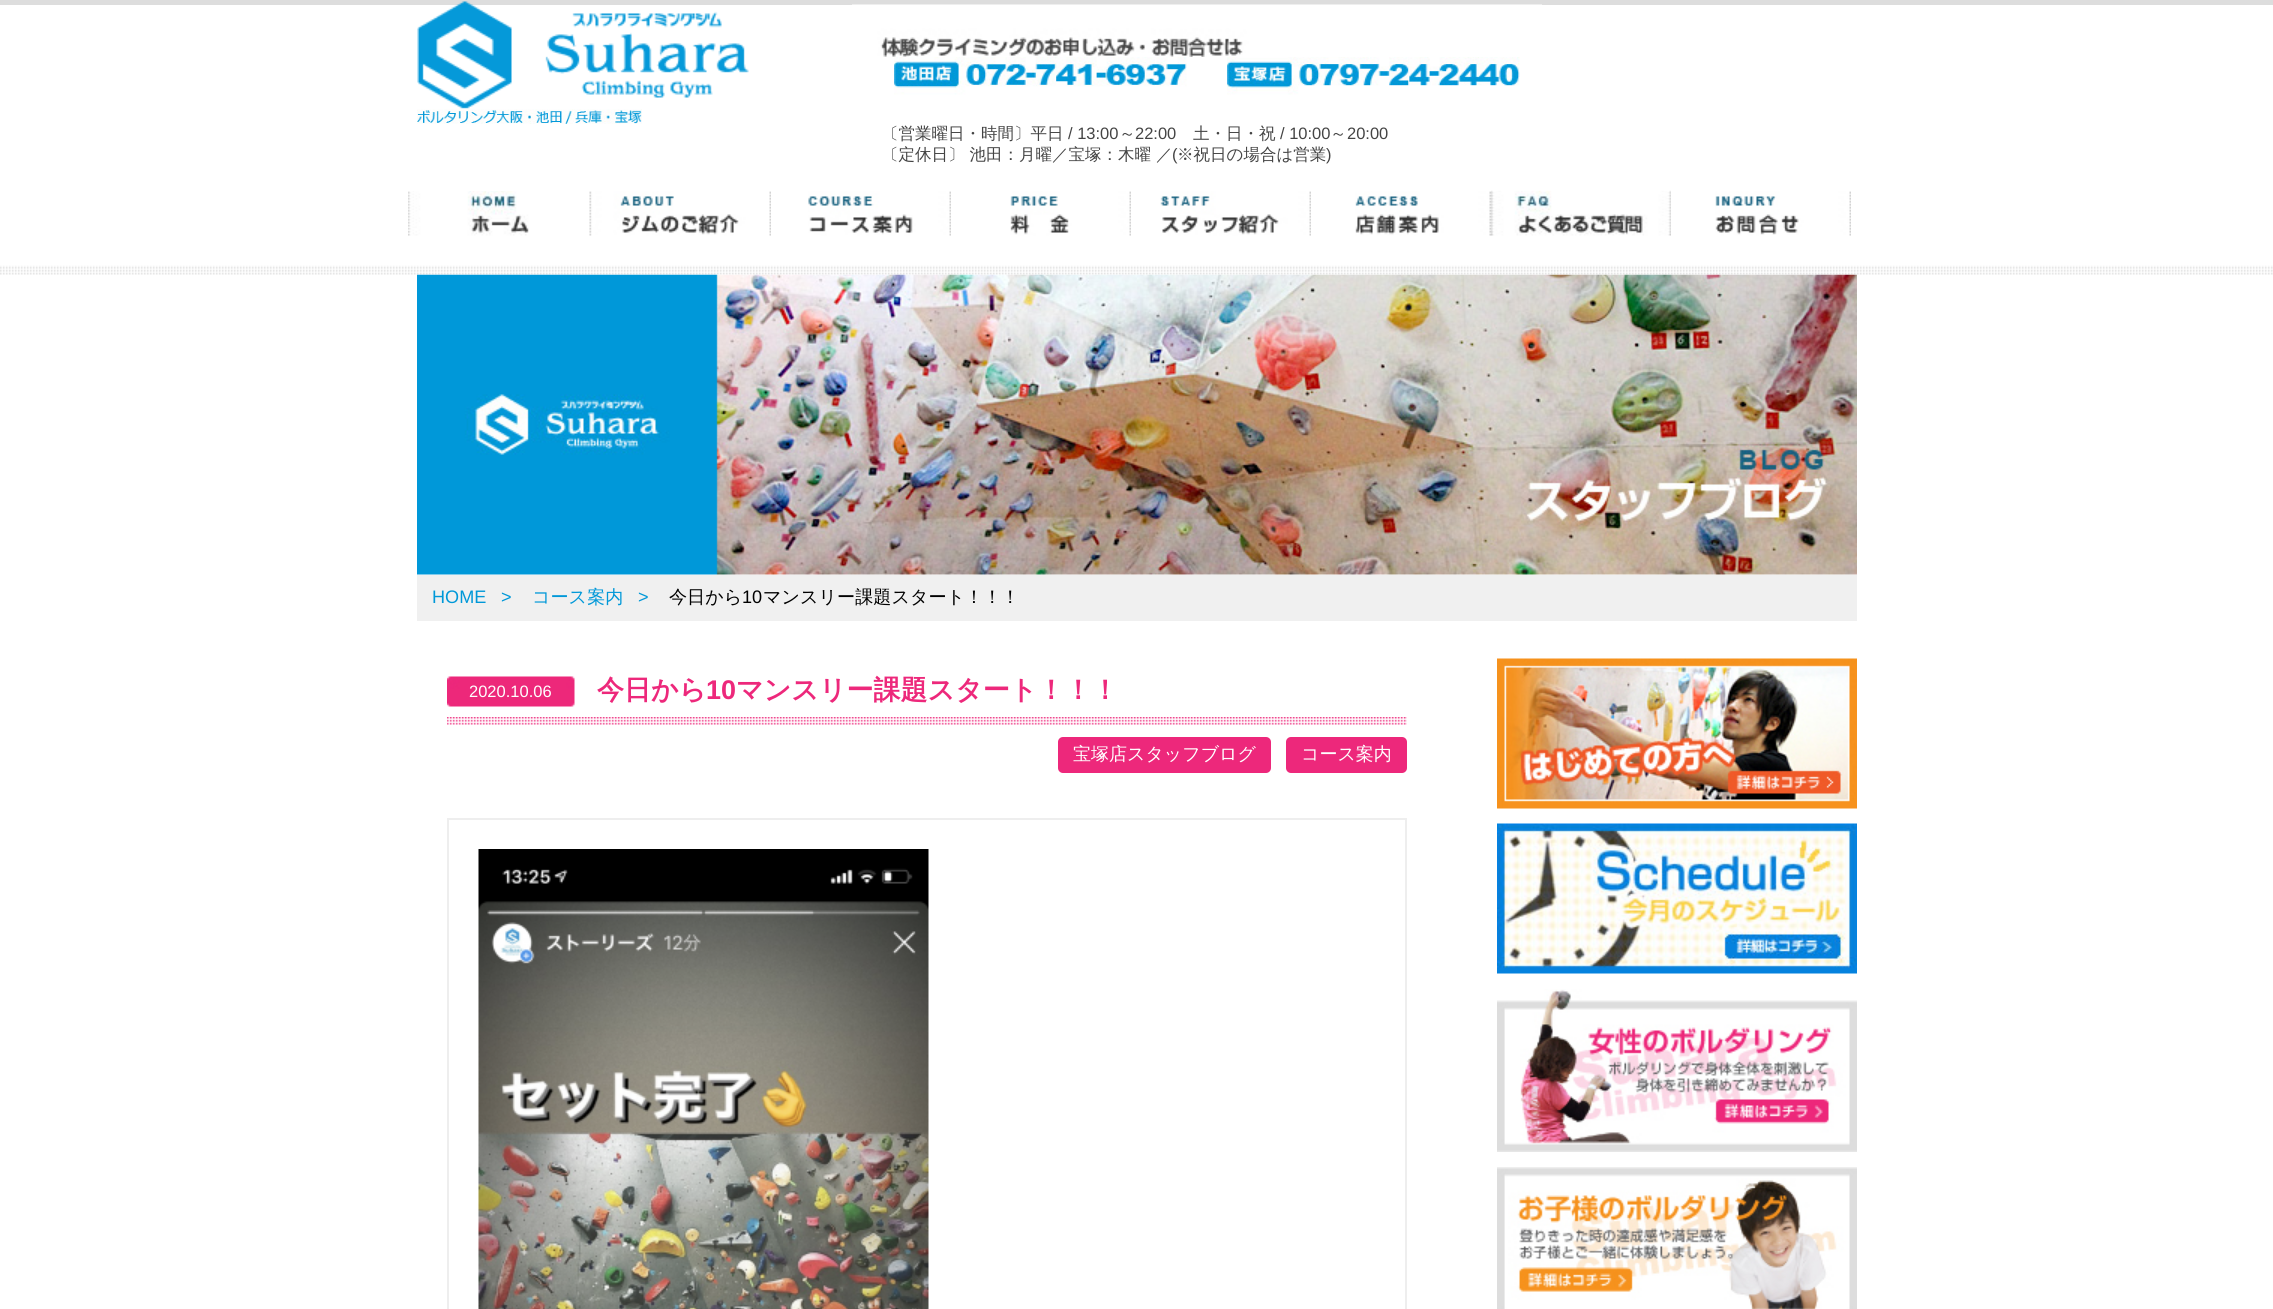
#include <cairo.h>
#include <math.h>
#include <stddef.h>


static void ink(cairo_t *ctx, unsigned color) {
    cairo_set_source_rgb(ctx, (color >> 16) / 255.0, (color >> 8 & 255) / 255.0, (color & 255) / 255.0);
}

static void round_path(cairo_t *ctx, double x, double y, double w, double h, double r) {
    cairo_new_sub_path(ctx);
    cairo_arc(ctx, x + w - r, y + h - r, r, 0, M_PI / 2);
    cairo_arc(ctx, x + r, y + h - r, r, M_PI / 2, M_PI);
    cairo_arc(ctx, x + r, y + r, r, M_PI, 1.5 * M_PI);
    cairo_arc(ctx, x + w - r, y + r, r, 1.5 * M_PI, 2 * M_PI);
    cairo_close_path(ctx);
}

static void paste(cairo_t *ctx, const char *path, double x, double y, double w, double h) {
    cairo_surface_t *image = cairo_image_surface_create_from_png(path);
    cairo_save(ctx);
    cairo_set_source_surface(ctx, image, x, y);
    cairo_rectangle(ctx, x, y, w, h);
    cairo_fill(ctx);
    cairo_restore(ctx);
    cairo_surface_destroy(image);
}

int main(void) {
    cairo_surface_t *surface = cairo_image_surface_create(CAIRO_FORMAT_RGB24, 2273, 1309);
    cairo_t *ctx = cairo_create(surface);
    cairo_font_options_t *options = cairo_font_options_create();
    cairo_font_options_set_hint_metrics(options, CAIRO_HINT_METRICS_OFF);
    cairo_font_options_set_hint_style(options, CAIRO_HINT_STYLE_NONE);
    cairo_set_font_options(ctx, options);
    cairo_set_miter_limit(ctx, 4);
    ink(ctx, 0xFFFFFF);
    cairo_paint(ctx);
    ink(ctx, 0xDDDDDD);
    cairo_rectangle(ctx, 0, 0, 2273, 5);
    cairo_fill(ctx);
    paste(ctx, "media/1.png", 417, 1, 332, 108);
    paste(ctx, "media/2.png", 417, 109, 225, 15);
    paste(ctx, "media/3.png", 852, 4, 690, 53);
    paste(ctx, "media/4.png", 894, 57, 293, 38);
    paste(ctx, "media/5.png", 1227, 57, 293, 38);
    cairo_select_font_face(ctx, "WenQuanYi Zen Hei Medium", CAIRO_FONT_SLANT_NORMAL, CAIRO_FONT_WEIGHT_NORMAL);
    cairo_set_font_size(ctx, 16.5);
    ink(ctx, 0x444444);
    cairo_move_to(ctx, 882, 139);
    cairo_show_text(ctx, "〔営業曜日・時間〕平日");
    cairo_select_font_face(ctx, "Liberation Sans", CAIRO_FONT_SLANT_NORMAL, CAIRO_FONT_WEIGHT_NORMAL);
    cairo_move_to(ctx, 1068, 139);
    cairo_show_text(ctx, "/ 13:00");
    cairo_select_font_face(ctx, "WenQuanYi Zen Hei Medium", CAIRO_FONT_SLANT_NORMAL, CAIRO_FONT_WEIGHT_NORMAL);
    cairo_move_to(ctx, 1119, 139);
    cairo_show_text(ctx, "～");
    cairo_select_font_face(ctx, "Liberation Sans", CAIRO_FONT_SLANT_NORMAL, CAIRO_FONT_WEIGHT_NORMAL);
    cairo_move_to(ctx, 1135, 139);
    cairo_show_text(ctx, "22:00");
    cairo_select_font_face(ctx, "WenQuanYi Zen Hei Medium", CAIRO_FONT_SLANT_NORMAL, CAIRO_FONT_WEIGHT_NORMAL);
    cairo_move_to(ctx, 1193, 139);
    cairo_show_text(ctx, "土・日・祝");
    cairo_select_font_face(ctx, "Liberation Sans", CAIRO_FONT_SLANT_NORMAL, CAIRO_FONT_WEIGHT_NORMAL);
    cairo_move_to(ctx, 1280, 139);
    cairo_show_text(ctx, "/ 10:00");
    cairo_select_font_face(ctx, "WenQuanYi Zen Hei Medium", CAIRO_FONT_SLANT_NORMAL, CAIRO_FONT_WEIGHT_NORMAL);
    cairo_move_to(ctx, 1330, 139);
    cairo_show_text(ctx, "～");
    cairo_select_font_face(ctx, "Liberation Sans", CAIRO_FONT_SLANT_NORMAL, CAIRO_FONT_WEIGHT_NORMAL);
    cairo_move_to(ctx, 1347, 139);
    cairo_show_text(ctx, "20:00");
    cairo_select_font_face(ctx, "WenQuanYi Zen Hei Medium", CAIRO_FONT_SLANT_NORMAL, CAIRO_FONT_WEIGHT_NORMAL);
    cairo_move_to(ctx, 882, 160);
    cairo_show_text(ctx, "〔定休日〕 池田：月曜／宝塚：木曜 ／");
    cairo_select_font_face(ctx, "Liberation Sans", CAIRO_FONT_SLANT_NORMAL, CAIRO_FONT_WEIGHT_NORMAL);
    cairo_move_to(ctx, 1172, 160);
    cairo_show_text(ctx, "(");
    cairo_select_font_face(ctx, "WenQuanYi Zen Hei Medium", CAIRO_FONT_SLANT_NORMAL, CAIRO_FONT_WEIGHT_NORMAL);
    cairo_move_to(ctx, 1177, 160);
    cairo_show_text(ctx, "※祝日の場合は営業");
    cairo_select_font_face(ctx, "Liberation Sans", CAIRO_FONT_SLANT_NORMAL, CAIRO_FONT_WEIGHT_NORMAL);
    cairo_move_to(ctx, 1326, 160);
    cairo_show_text(ctx, ")");
    paste(ctx, "media/6.png", 0, 265, 2273, 10);
    paste(ctx, "media/7.png", 408, 191, 121, 45);
    paste(ctx, "media/8.png", 589, 191, 182, 45);
    paste(ctx, "media/9.png", 808, 191, 143, 45);
    paste(ctx, "media/10.png", 1010, 191, 121, 45);
    paste(ctx, "media/11.png", 1160, 191, 151, 45);
    paste(ctx, "media/12.png", 1355, 191, 136, 45);
    paste(ctx, "media/13.png", 1491, 190, 180, 46);
    paste(ctx, "media/14.png", 1715, 191, 136, 45);
    paste(ctx, "media/15.png", 417, 274, 1440, 301);
    ink(ctx, 0xF0F0F0);
    cairo_rectangle(ctx, 417, 575, 1440, 46);
    cairo_fill(ctx);
    cairo_set_font_size(ctx, 18.1);
    ink(ctx, 0x0098D8);
    cairo_move_to(ctx, 432, 603);
    cairo_show_text(ctx, "HOME");
    cairo_move_to(ctx, 501, 603);
    cairo_show_text(ctx, ">");
    cairo_select_font_face(ctx, "WenQuanYi Zen Hei Medium", CAIRO_FONT_SLANT_NORMAL, CAIRO_FONT_WEIGHT_NORMAL);
    cairo_move_to(ctx, 532, 603);
    cairo_show_text(ctx, "コース案内");
    cairo_select_font_face(ctx, "Liberation Sans", CAIRO_FONT_SLANT_NORMAL, CAIRO_FONT_WEIGHT_NORMAL);
    cairo_move_to(ctx, 638, 603);
    cairo_show_text(ctx, ">");
    cairo_select_font_face(ctx, "WenQuanYi Zen Hei Medium", CAIRO_FONT_SLANT_NORMAL, CAIRO_FONT_WEIGHT_NORMAL);
    ink(ctx, 0x000000);
    cairo_move_to(ctx, 669, 603);
    cairo_show_text(ctx, "今日から");
    cairo_select_font_face(ctx, "Liberation Sans", CAIRO_FONT_SLANT_NORMAL, CAIRO_FONT_WEIGHT_NORMAL);
    cairo_move_to(ctx, 742, 603);
    cairo_show_text(ctx, "10");
    cairo_select_font_face(ctx, "WenQuanYi Zen Hei Medium", CAIRO_FONT_SLANT_NORMAL, CAIRO_FONT_WEIGHT_NORMAL);
    cairo_move_to(ctx, 763, 603);
    cairo_show_text(ctx, "マンスリー課題スタート！！！");
    paste(ctx, "media/16.png", 447, 717, 960, 8);
    paste(ctx, "media/17.png", 447, 676, 128, 31);
    cairo_select_font_face(ctx, "Liberation Sans", CAIRO_FONT_SLANT_NORMAL, CAIRO_FONT_WEIGHT_NORMAL);
    cairo_set_font_size(ctx, 16.5);
    ink(ctx, 0xFFFFFF);
    cairo_move_to(ctx, 469, 697);
    cairo_show_text(ctx, "2020.10.06");
    cairo_select_font_face(ctx, "WenQuanYi Zen Hei", CAIRO_FONT_SLANT_NORMAL, CAIRO_FONT_WEIGHT_BOLD);
    cairo_set_font_size(ctx, 27);
    ink(ctx, 0xED287B);
    cairo_move_to(ctx, 597, 699);
    cairo_show_text(ctx, "今日から");
    cairo_select_font_face(ctx, "Liberation Sans", CAIRO_FONT_SLANT_NORMAL, CAIRO_FONT_WEIGHT_BOLD);
    cairo_move_to(ctx, 706, 699);
    cairo_show_text(ctx, "10");
    cairo_select_font_face(ctx, "WenQuanYi Zen Hei", CAIRO_FONT_SLANT_NORMAL, CAIRO_FONT_WEIGHT_BOLD);
    cairo_move_to(ctx, 736, 699);
    cairo_show_text(ctx, "マンスリー課題スタート！！！");
    round_path(ctx, 1058, 737, 213, 36, 5);
    cairo_fill(ctx);
    cairo_select_font_face(ctx, "WenQuanYi Zen Hei Medium", CAIRO_FONT_SLANT_NORMAL, CAIRO_FONT_WEIGHT_NORMAL);
    cairo_set_font_size(ctx, 18);
    ink(ctx, 0xFFFFFF);
    cairo_move_to(ctx, 1073, 760);
    cairo_show_text(ctx, "宝塚店スタッフブログ");
    ink(ctx, 0xED287B);
    round_path(ctx, 1286, 737, 121, 36, 5);
    cairo_fill(ctx);
    ink(ctx, 0xFFFFFF);
    cairo_move_to(ctx, 1301, 760);
    cairo_show_text(ctx, "コース案内");
    cairo_rectangle(ctx, 448, 819, 958, 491);
    ink(ctx, 0xEEEEEE);
    cairo_stroke(ctx);
    paste(ctx, "media/18.png", 478, 849, 451, 460);
    paste(ctx, "media/19.png", 1497, 658, 360, 151);
    paste(ctx, "media/20.png", 1497, 823, 360, 151);
    paste(ctx, "media/21.png", 1497, 989, 360, 163);
    paste(ctx, "media/22.png", 1497, 1167, 360, 142);
    cairo_surface_write_to_png(surface, "image.png");
    cairo_font_options_destroy(options);
    cairo_destroy(ctx);
    cairo_surface_destroy(surface);
    return 0;
}
